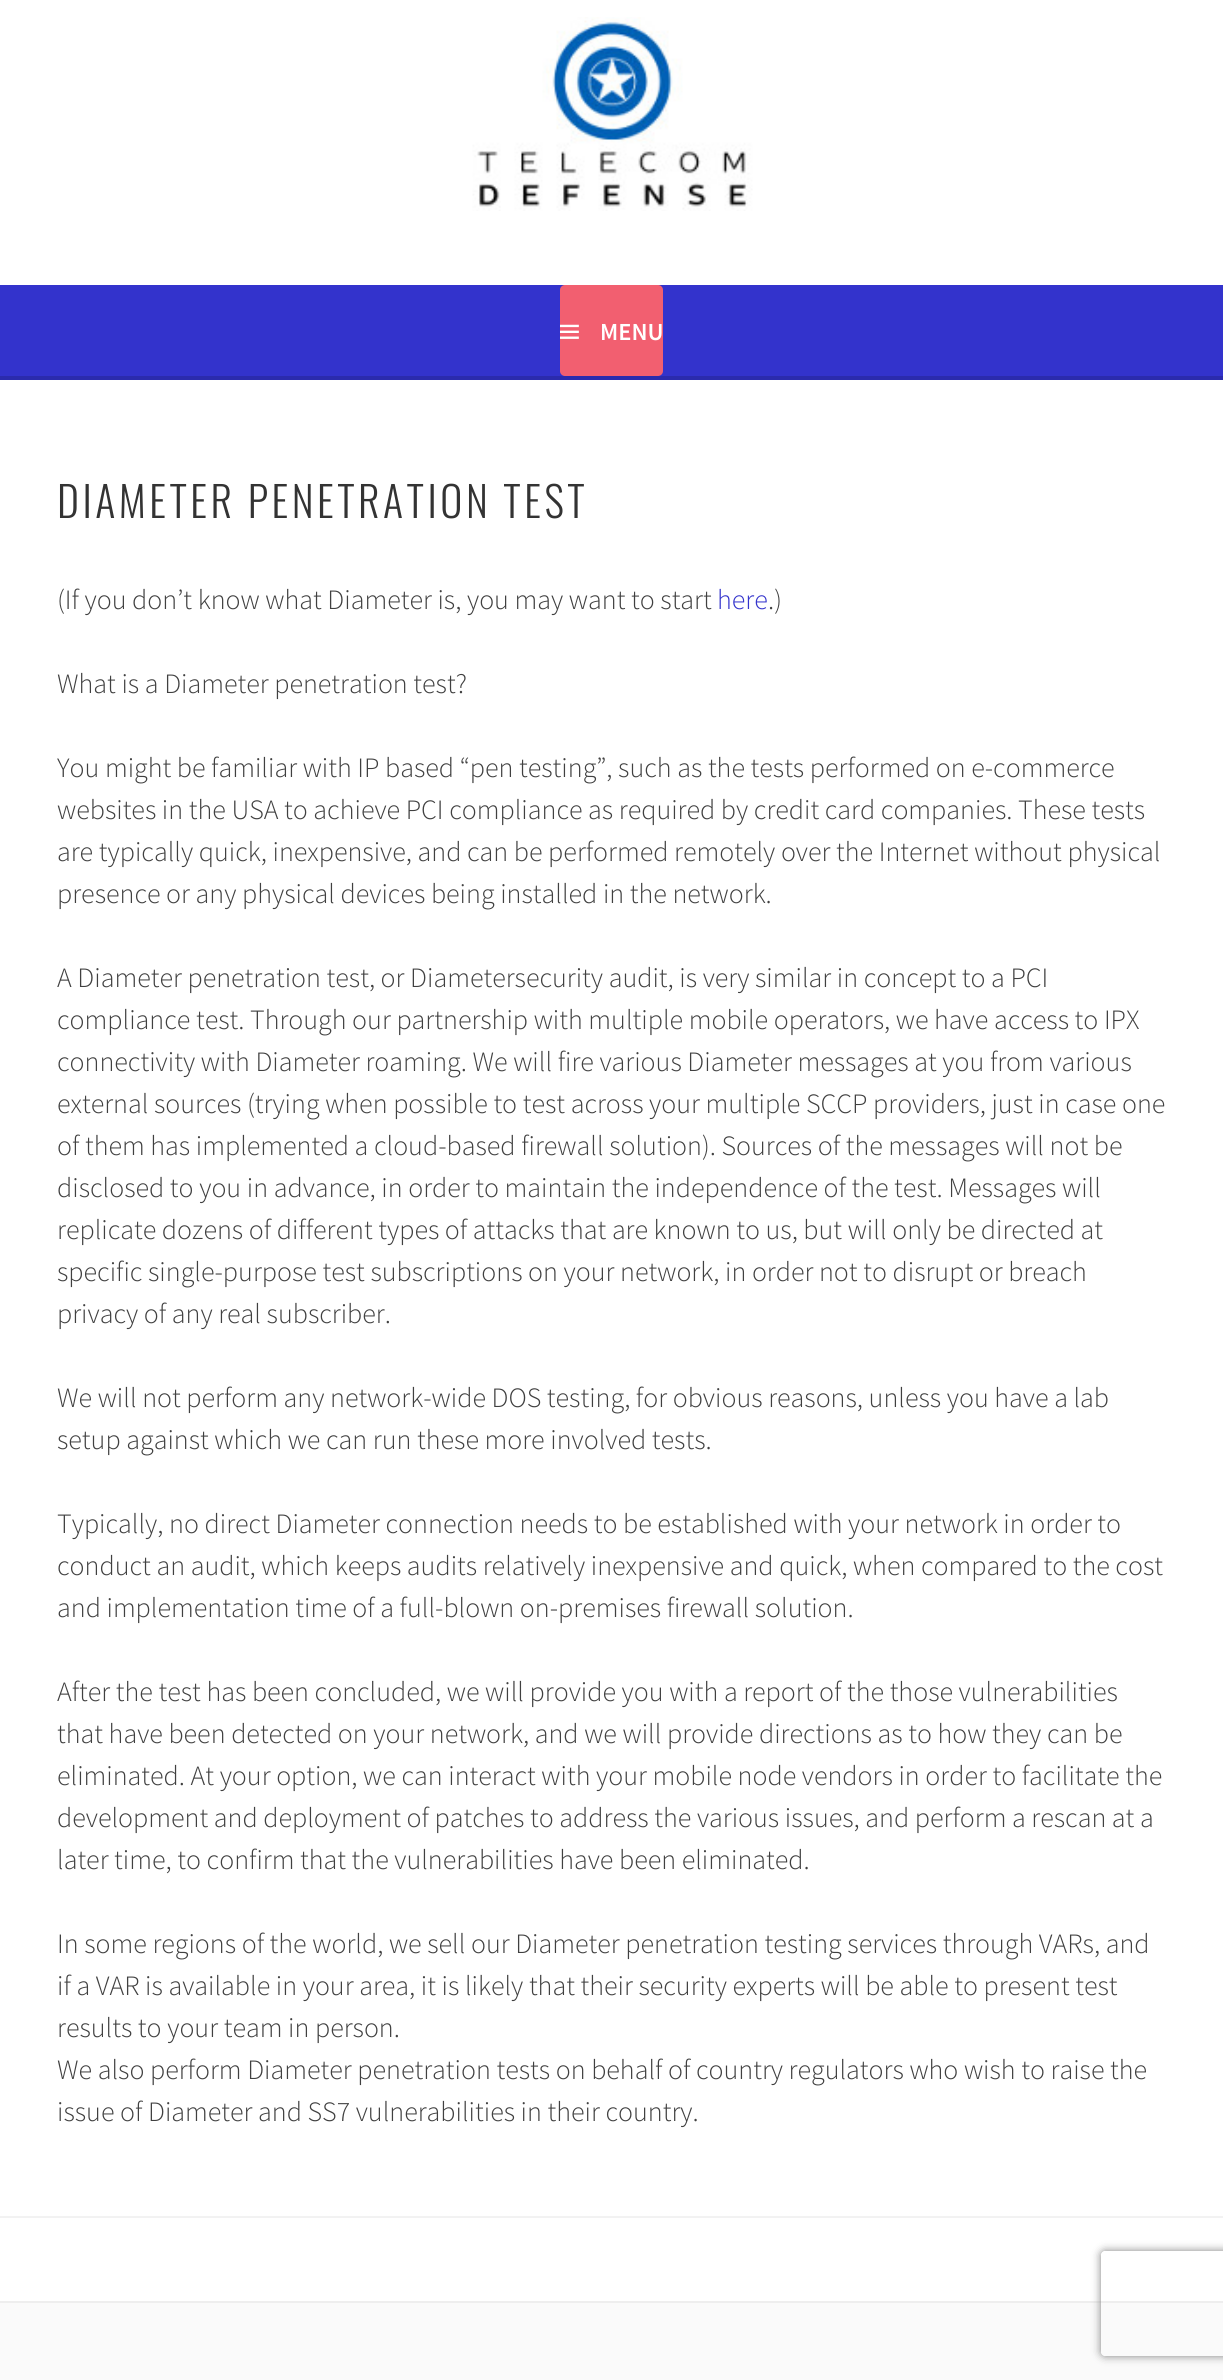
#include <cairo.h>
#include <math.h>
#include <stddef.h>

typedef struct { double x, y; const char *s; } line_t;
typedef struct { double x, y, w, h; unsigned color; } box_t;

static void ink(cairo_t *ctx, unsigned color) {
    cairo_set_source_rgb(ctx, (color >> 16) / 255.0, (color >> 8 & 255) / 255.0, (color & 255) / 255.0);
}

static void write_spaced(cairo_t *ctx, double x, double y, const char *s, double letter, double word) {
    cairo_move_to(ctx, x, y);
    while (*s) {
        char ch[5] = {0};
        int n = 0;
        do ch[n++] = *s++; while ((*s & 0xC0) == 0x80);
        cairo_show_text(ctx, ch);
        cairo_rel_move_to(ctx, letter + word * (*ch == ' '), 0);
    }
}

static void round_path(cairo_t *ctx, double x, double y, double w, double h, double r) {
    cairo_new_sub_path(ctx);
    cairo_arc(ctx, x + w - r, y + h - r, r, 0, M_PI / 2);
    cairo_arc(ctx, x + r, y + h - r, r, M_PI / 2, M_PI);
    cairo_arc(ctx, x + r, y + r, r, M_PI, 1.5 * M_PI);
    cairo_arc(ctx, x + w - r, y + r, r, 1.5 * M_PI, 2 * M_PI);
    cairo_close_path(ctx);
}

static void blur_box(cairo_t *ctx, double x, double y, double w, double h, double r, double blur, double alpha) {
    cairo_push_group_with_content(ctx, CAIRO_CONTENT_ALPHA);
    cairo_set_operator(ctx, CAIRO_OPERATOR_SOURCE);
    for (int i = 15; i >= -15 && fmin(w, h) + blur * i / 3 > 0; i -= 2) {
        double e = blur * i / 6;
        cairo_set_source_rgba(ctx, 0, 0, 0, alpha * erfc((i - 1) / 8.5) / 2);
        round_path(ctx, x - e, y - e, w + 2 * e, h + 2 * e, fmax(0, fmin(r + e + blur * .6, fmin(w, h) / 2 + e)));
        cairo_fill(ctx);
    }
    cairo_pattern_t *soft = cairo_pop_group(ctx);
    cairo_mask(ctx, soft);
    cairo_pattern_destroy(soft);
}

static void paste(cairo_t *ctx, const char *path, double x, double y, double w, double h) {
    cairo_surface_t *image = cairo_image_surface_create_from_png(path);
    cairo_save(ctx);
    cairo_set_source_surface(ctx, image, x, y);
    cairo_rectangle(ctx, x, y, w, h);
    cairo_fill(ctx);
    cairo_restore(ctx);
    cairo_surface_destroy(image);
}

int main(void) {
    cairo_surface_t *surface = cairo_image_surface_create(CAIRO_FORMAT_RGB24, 1223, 2380);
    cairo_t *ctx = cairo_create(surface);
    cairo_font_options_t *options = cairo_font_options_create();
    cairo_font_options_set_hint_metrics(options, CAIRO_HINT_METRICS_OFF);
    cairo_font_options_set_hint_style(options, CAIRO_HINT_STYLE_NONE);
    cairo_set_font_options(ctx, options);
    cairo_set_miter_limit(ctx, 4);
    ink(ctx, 0xFFFFFF);
    cairo_paint(ctx);
    paste(ctx, "media/1.png", 472, 17, 281, 194);
    ink(ctx, 0x3333CC);
    cairo_rectangle(ctx, 0, 285, 1223, 91);
    cairo_fill(ctx);
    ink(ctx, 0x2B2BAD);
    cairo_rectangle(ctx, 0, 376, 1223, 4);
    cairo_fill(ctx);
    ink(ctx, 0xF25F70);
    round_path(ctx, 560, 285, 103, 91, 5);
    cairo_fill(ctx);
    paste(ctx, "media/2.png", 560, 324, 19, 15);
    cairo_select_font_face(ctx, "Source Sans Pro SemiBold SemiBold", CAIRO_FONT_SLANT_NORMAL, CAIRO_FONT_WEIGHT_NORMAL);
    cairo_set_font_size(ctx, 24.5);
    ink(ctx, 0xFFFFFF);
    cairo_move_to(ctx, 600, 340);
    cairo_show_text(ctx, "MENU");
    cairo_select_font_face(ctx, "Oswald Light", CAIRO_FONT_SLANT_NORMAL, CAIRO_FONT_WEIGHT_NORMAL);
    cairo_set_font_size(ctx, 42);
    ink(ctx, 0x333333);
    write_spaced(ctx, 57, 518, "DIAMETER PENETRATION TEST", 3.5, 0);
    cairo_select_font_face(ctx, "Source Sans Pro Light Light", CAIRO_FONT_SLANT_NORMAL, CAIRO_FONT_WEIGHT_NORMAL);
    cairo_set_font_size(ctx, 28);
    ink(ctx, 0x404040);
    cairo_move_to(ctx, 57, 609);
    cairo_show_text(ctx, "(If you don’t know what Diameter is, you may want to start");
    ink(ctx, 0x3333CC);
    cairo_move_to(ctx, 717, 609);
    cairo_show_text(ctx, "here");
    ink(ctx, 0x404040);
    {
        static const line_t items[] = {
            {768, 609, ".)"},
            {57, 693, "What is a Diameter penetration test?"},
            {57, 777, "You might be familiar with IP based “pen testing”, such as the tests performed on e-commerce"},
            {57, 819, "websites in the USA to achieve PCI compliance as required by credit card companies. These tests"},
            {57, 861, "are typically quick, inexpensive, and can be performed remotely over the Internet without physical"},
            {57, 903, "presence or any physical devices being installed in the network."},
            {57, 987, "A Diameter penetration test, or Diametersecurity audit, is very similar in concept to a PCI"},
            {57, 1029, "compliance test. Through our partnership with multiple mobile operators, we have access to IPX"},
            {57, 1071, "connectivity with Diameter roaming. We will fire various Diameter messages at you from various"},
            {57, 1113, "external sources (trying when possible to test across your multiple SCCP providers, just in case one"},
            {57, 1155, "of them has implemented a cloud-based firewall solution). Sources of the messages will not be"},
            {57, 1197, "disclosed to you in advance, in order to maintain the independence of the test. Messages will"},
            {57, 1239, "replicate dozens of different types of attacks that are known to us, but will only be directed at"},
            {57, 1281, "specific single-purpose test subscriptions on your network, in order not to disrupt or breach"},
            {57, 1323, "privacy of any real subscriber."},
            {57, 1407, "We will not perform any network-wide DOS testing, for obvious reasons, unless you have a lab"},
            {57, 1449, "setup against which we can run these more involved tests."},
            {57, 1533, "Typically, no direct Diameter connection needs to be established with your network in order to"},
            {57, 1575, "conduct an audit, which keeps audits relatively inexpensive and quick, when compared to the cost"},
            {57, 1617, "and implementation time of a full-blown on-premises firewall solution."},
            {57, 1701, "After the test has been concluded, we will provide you with a report of the those vulnerabilities"},
            {57, 1743, "that have been detected on your network, and we will provide directions as to how they can be"},
            {57, 1785, "eliminated. At your option, we can interact with your mobile node vendors in order to facilitate the"},
            {57, 1827, "development and deployment of patches to address the various issues, and perform a rescan at a"},
            {57, 1869, "later time, to confirm that the vulnerabilities have been eliminated."},
            {57, 1953, "In some regions of the world, we sell our Diameter penetration testing services through VARs, and"},
            {57, 1995, "if a VAR is available in your area, it is likely that their security experts will be able to present test"},
            {57, 2037, "results to your team in person."},
            {57, 2079, "We also perform Diameter penetration tests on behalf of country regulators who wish to raise the"},
            {57, 2121, "issue of Diameter and SS7 vulnerabilities in their country."},
        };
        for (size_t i = 0; i < sizeof items / sizeof *items; i++) {
            cairo_move_to(ctx, items[i].x, items[i].y);
            cairo_show_text(ctx, items[i].s);
        }
    }
    {
        static const box_t items[] = {
            {0, 2216, 1223, 2, 0xF2F2F2},
            {0, 2303, 1223, 77, 0xFAFAFA},
            {0, 2301, 1223, 2, 0xEEEEEE},
        };
        for (size_t i = 0; i < sizeof items / sizeof *items; i++) {
            ink(ctx, items[i].color);
            cairo_rectangle(ctx, items[i].x, items[i].y, items[i].w, items[i].h);
            cairo_fill(ctx);
        }
    }
    cairo_save(ctx);
    cairo_set_fill_rule(ctx, CAIRO_FILL_RULE_EVEN_ODD);
    cairo_new_path(ctx);
    cairo_move_to(ctx, 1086, 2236);
    cairo_line_to(ctx, 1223, 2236);
    cairo_line_to(ctx, 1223, 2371);
    cairo_line_to(ctx, 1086, 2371);
    cairo_close_path(ctx);
    cairo_move_to(ctx, 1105, 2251);
    cairo_line_to(ctx, 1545, 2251);
    cairo_curve_to(ctx, 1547, 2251, 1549, 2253, 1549, 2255);
    cairo_line_to(ctx, 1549, 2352);
    cairo_curve_to(ctx, 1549, 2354, 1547, 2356, 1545, 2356);
    cairo_line_to(ctx, 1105, 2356);
    cairo_curve_to(ctx, 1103, 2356, 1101, 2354, 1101, 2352);
    cairo_line_to(ctx, 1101, 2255);
    cairo_curve_to(ctx, 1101, 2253, 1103, 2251, 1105, 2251);
    cairo_close_path(ctx);
    cairo_clip(ctx);
    ink(ctx, 0x808080);
    blur_box(ctx, 1101, 2251, 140, 105, 4, 4.5, 1);
    cairo_restore(ctx);
    cairo_surface_write_to_png(surface, "image.png");
    cairo_font_options_destroy(options);
    cairo_destroy(ctx);
    cairo_surface_destroy(surface);
    return 0;
}
